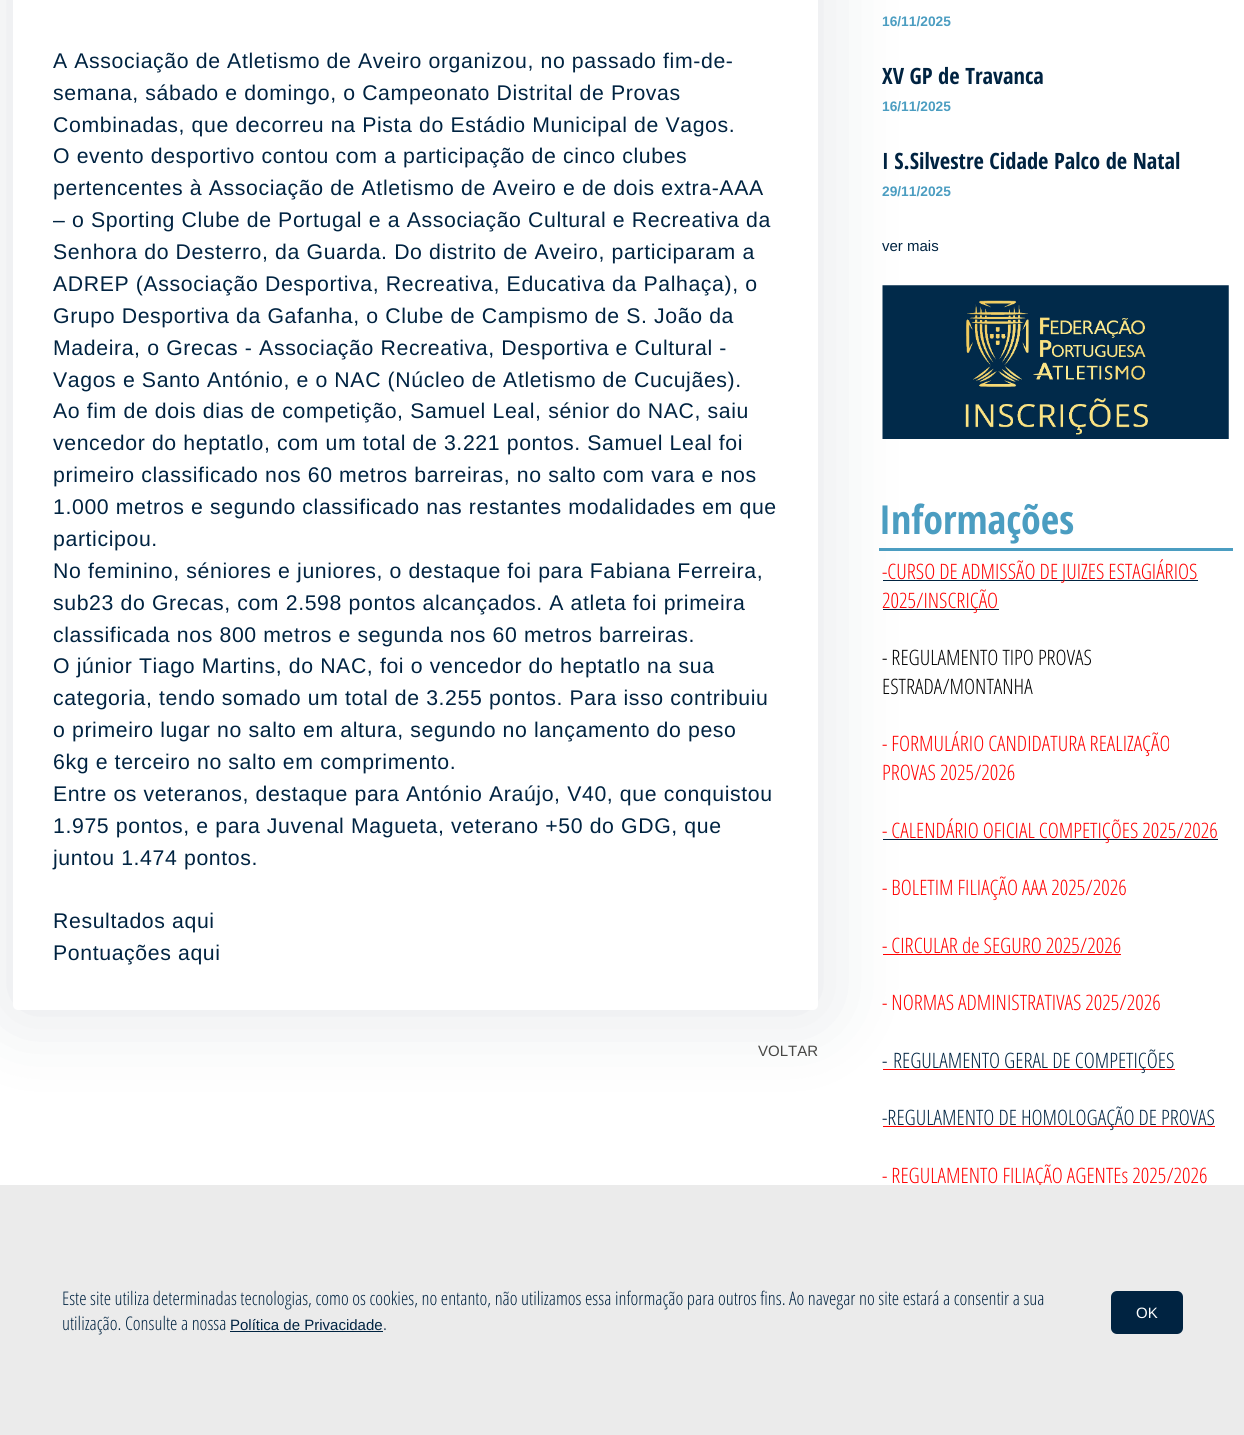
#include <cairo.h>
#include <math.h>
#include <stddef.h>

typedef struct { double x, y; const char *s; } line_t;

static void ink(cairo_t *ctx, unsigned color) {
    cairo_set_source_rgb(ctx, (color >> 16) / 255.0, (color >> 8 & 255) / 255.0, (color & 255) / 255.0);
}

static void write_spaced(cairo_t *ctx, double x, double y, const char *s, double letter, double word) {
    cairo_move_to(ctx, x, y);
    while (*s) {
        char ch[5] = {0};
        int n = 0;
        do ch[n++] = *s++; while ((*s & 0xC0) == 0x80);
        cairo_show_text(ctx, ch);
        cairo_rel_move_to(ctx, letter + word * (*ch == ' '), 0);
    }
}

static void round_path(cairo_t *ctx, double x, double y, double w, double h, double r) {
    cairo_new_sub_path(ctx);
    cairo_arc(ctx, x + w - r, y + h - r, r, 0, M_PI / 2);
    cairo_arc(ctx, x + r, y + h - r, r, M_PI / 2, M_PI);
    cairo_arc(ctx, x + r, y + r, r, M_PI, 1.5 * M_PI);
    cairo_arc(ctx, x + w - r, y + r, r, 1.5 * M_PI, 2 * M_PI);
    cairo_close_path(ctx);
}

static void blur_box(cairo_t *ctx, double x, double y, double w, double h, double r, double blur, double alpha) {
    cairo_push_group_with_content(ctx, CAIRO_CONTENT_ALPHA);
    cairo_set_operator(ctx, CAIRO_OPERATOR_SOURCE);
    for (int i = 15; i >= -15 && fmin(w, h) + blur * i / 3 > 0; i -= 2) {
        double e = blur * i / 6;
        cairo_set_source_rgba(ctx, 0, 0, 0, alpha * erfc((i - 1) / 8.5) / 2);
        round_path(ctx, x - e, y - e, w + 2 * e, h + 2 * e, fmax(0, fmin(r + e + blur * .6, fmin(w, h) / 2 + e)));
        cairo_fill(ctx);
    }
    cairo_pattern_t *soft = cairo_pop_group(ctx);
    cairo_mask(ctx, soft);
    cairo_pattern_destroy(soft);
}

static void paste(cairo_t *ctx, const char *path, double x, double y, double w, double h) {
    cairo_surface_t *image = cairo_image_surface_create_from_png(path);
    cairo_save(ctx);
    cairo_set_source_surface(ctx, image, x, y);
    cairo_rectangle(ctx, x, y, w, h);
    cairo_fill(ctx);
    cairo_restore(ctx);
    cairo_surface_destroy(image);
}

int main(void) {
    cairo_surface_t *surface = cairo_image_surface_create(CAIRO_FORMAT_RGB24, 1244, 1435);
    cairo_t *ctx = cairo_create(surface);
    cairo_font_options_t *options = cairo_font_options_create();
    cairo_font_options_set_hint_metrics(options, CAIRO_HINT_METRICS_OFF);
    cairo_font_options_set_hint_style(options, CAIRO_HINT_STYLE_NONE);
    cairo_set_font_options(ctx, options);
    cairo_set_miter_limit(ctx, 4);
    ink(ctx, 0xFFFFFF);
    cairo_paint(ctx);
    ink(ctx, 0x0D243E);
    blur_box(ctx, 0, -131, 830, 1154, 18, 37.5, 0.1);
    ink(ctx, 0xFFFFFF);
    round_path(ctx, 13, -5, 805, 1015, 5);
    cairo_fill(ctx);
    cairo_select_font_face(ctx, "Liberation Sans", CAIRO_FONT_SLANT_NORMAL, CAIRO_FONT_WEIGHT_NORMAL);
    cairo_set_font_size(ctx, 21.25);
    ink(ctx, 0x002341);
    {
        static const line_t items[] = {
            {53, 68, "A Associação de Atletismo de Aveiro organizou, no passado fim-de-"},
            {53, 100, "semana, sábado e domingo, o Campeonato Distrital de Provas"},
            {53, 132, "Combinadas, que decorreu na Pista do Estádio Municipal de Vagos."},
            {53, 163, "O evento desportivo contou com a participação de cinco clubes"},
            {53, 195, "pertencentes à Associação de Atletismo de Aveiro e de dois extra-AAA"},
            {53, 227, "– o Sporting Clube de Portugal e a Associação Cultural e Recreativa da"},
            {53, 259, "Senhora do Desterro, da Guarda. Do distrito de Aveiro, participaram a"},
            {53, 291, "ADREP (Associação Desportiva, Recreativa, Educativa da Palhaça), o"},
            {53, 323, "Grupo Desportiva da Gafanha, o Clube de Campismo de S. João da"},
            {53, 355, "Madeira, o Grecas - Associação Recreativa, Desportiva e Cultural -"},
            {53, 387, "Vagos e Santo António, e o NAC (Núcleo de Atletismo de Cucujães)."},
            {53, 418, "Ao fim de dois dias de competição, Samuel Leal, sénior do NAC, saiu"},
            {53, 450, "vencedor do heptatlo, com um total de 3.221 pontos. Samuel Leal foi"},
            {53, 482, "primeiro classificado nos 60 metros barreiras, no salto com vara e nos"},
            {53, 514, "1.000 metros e segundo classificado nas restantes modalidades em que"},
            {53, 546, "participou."},
            {53, 578, "No feminino, séniores e juniores, o destaque foi para Fabiana Ferreira,"},
            {53, 610, "sub23 do Grecas, com 2.598 pontos alcançados. A atleta foi primeira"},
            {53, 642, "classificada nos 800 metros e segunda nos 60 metros barreiras."},
            {53, 673, "O júnior Tiago Martins, do NAC, foi o vencedor do heptatlo na sua"},
            {53, 705, "categoria, tendo somado um total de 3.255 pontos. Para isso contribuiu"},
            {53, 737, "o primeiro lugar no salto em altura, segundo no lançamento do peso"},
            {53, 769, "6kg e terceiro no salto em comprimento."},
            {53, 801, "Entre os veteranos, destaque para António Araújo, V40, que conquistou"},
            {53, 833, "1.975 pontos, e para Juvenal Magueta, veterano +50 do GDG, que"},
            {53, 865, "juntou 1.474 pontos."},
            {53, 928, "Resultados aqui"},
            {53, 960, "Pontuações aqui"},
        };
        for (size_t i = 0; i < sizeof items / sizeof *items; i++) {
            write_spaced(ctx, items[i].x, items[i].y, items[i].s, 0.62, 0);
        }
    }
    cairo_set_font_size(ctx, 15);
    ink(ctx, 0x474745);
    cairo_move_to(ctx, 758, 1056);
    cairo_show_text(ctx, "VOLTAR");
    cairo_select_font_face(ctx, "Liberation Sans", CAIRO_FONT_SLANT_NORMAL, CAIRO_FONT_WEIGHT_BOLD);
    cairo_set_font_size(ctx, 13.75);
    ink(ctx, 0x4B9DC1);
    cairo_move_to(ctx, 882, 26);
    cairo_show_text(ctx, "16/11/2025");
    cairo_select_font_face(ctx, "Open Sans Condensed", CAIRO_FONT_SLANT_NORMAL, CAIRO_FONT_WEIGHT_BOLD);
    cairo_set_font_size(ctx, 22.5);
    ink(ctx, 0x002341);
    cairo_move_to(ctx, 882, 84);
    cairo_show_text(ctx, "XV GP de Travanca");
    cairo_select_font_face(ctx, "Liberation Sans", CAIRO_FONT_SLANT_NORMAL, CAIRO_FONT_WEIGHT_BOLD);
    cairo_set_font_size(ctx, 13.75);
    ink(ctx, 0x4B9DC1);
    cairo_move_to(ctx, 882, 111);
    cairo_show_text(ctx, "16/11/2025");
    cairo_select_font_face(ctx, "Open Sans Condensed", CAIRO_FONT_SLANT_NORMAL, CAIRO_FONT_WEIGHT_BOLD);
    cairo_set_font_size(ctx, 22.5);
    ink(ctx, 0x002341);
    cairo_move_to(ctx, 882, 169);
    cairo_show_text(ctx, "I S.Silvestre Cidade Palco de Natal");
    cairo_select_font_face(ctx, "Liberation Sans", CAIRO_FONT_SLANT_NORMAL, CAIRO_FONT_WEIGHT_BOLD);
    cairo_set_font_size(ctx, 13.75);
    ink(ctx, 0x4B9DC1);
    cairo_move_to(ctx, 882, 196);
    cairo_show_text(ctx, "29/11/2025");
    cairo_select_font_face(ctx, "Liberation Sans", CAIRO_FONT_SLANT_NORMAL, CAIRO_FONT_WEIGHT_NORMAL);
    cairo_set_font_size(ctx, 15);
    ink(ctx, 0x002341);
    cairo_move_to(ctx, 882, 251);
    cairo_show_text(ctx, "ver mais");
    paste(ctx, "media/1.png", 882, 285, 347, 154);
    ink(ctx, 0x4B9DC1);
    cairo_rectangle(ctx, 879, 548, 354, 3);
    cairo_fill(ctx);
    cairo_select_font_face(ctx, "Open Sans Condensed", CAIRO_FONT_SLANT_NORMAL, CAIRO_FONT_WEIGHT_BOLD);
    cairo_set_font_size(ctx, 40);
    cairo_move_to(ctx, 879, 534);
    cairo_show_text(ctx, "Informações");
    ink(ctx, 0x002341);
    cairo_rectangle(ctx, 883, 580, 315, 1);
    cairo_fill(ctx);
    cairo_select_font_face(ctx, "Open Sans Condensed Light", CAIRO_FONT_SLANT_NORMAL, CAIRO_FONT_WEIGHT_NORMAL);
    cairo_set_font_size(ctx, 21.25);
    ink(ctx, 0xFF0000);
    cairo_move_to(ctx, 882, 579);
    cairo_show_text(ctx, "-CURSO DE ADMISSÃO DE JUIZES ESTAGIÁRIOS");
    ink(ctx, 0x002341);
    cairo_rectangle(ctx, 883, 609, 116, 1);
    cairo_fill(ctx);
    ink(ctx, 0xFF0000);
    cairo_move_to(ctx, 882, 608);
    cairo_show_text(ctx, "2025/INSCRIÇÃO");
    ink(ctx, 0x000000);
    cairo_move_to(ctx, 882, 665);
    cairo_show_text(ctx, "- REGULAMENTO TIPO PROVAS");
    cairo_move_to(ctx, 882, 694);
    cairo_show_text(ctx, "ESTRADA/MONTANHA");
    ink(ctx, 0xFF0000);
    cairo_move_to(ctx, 882, 751);
    cairo_show_text(ctx, "- FORMULÁRIO CANDIDATURA REALIZAÇÃO");
    cairo_move_to(ctx, 882, 780);
    cairo_show_text(ctx, "PROVAS 2025/2026");
    ink(ctx, 0x002341);
    cairo_rectangle(ctx, 883, 839, 335, 1);
    cairo_fill(ctx);
    ink(ctx, 0xFF0000);
    {
        static const line_t items[] = {
            {882, 838, "- CALENDÁRIO OFICIAL COMPETIÇÕES 2025/2026"},
            {882, 895, "- BOLETIM FILIAÇÃO AAA 2025/2026"},
            {882, 953, "- CIRCULAR de SEGURO 2025/2026"},
        };
        for (size_t i = 0; i < sizeof items / sizeof *items; i++) {
            cairo_move_to(ctx, items[i].x, items[i].y);
            cairo_show_text(ctx, items[i].s);
        }
    }
    cairo_rectangle(ctx, 883, 954, 238, 1);
    cairo_fill(ctx);
    cairo_move_to(ctx, 882, 1010);
    cairo_show_text(ctx, "- NORMAS ADMINISTRATIVAS 2025/2026");
    ink(ctx, 0x002341);
    cairo_move_to(ctx, 882, 1068);
    cairo_show_text(ctx, "-");
    ink(ctx, 0xFF0000);
    cairo_rectangle(ctx, 883, 1069, 292, 1);
    cairo_fill(ctx);
    ink(ctx, 0x002341);
    cairo_move_to(ctx, 893, 1068);
    cairo_show_text(ctx, "REGULAMENTO GERAL DE COMPETIÇÕES");
    ink(ctx, 0xFF0000);
    cairo_rectangle(ctx, 883, 1126, 332, 1);
    cairo_fill(ctx);
    ink(ctx, 0x002341);
    cairo_move_to(ctx, 882, 1125);
    cairo_show_text(ctx, "-REGULAMENTO DE HOMOLOGAÇÃO DE PROVAS");
    ink(ctx, 0xFF0000);
    cairo_move_to(ctx, 882, 1183);
    cairo_show_text(ctx, "- REGULAMENTO FILIAÇÃO AGENTEs 2025/2026");
    ink(ctx, 0xEBEBEB);
    cairo_rectangle(ctx, 0, 1185, 1244, 250);
    cairo_fill(ctx);
    cairo_set_font_size(ctx, 18.75);
    ink(ctx, 0x002341);
    cairo_move_to(ctx, 62, 1305);
    cairo_show_text(ctx, "Este site utiliza determinadas tecnologias, como os cookies, no entanto, não utilizamos essa informação para outros fins. Ao navegar no site estará a consentir a sua");
    cairo_move_to(ctx, 62, 1330);
    cairo_show_text(ctx, "utilização. Consulte a nossa");
    cairo_select_font_face(ctx, "Liberation Sans", CAIRO_FONT_SLANT_NORMAL, CAIRO_FONT_WEIGHT_NORMAL);
    cairo_set_font_size(ctx, 15);
    cairo_move_to(ctx, 230, 1330);
    cairo_show_text(ctx, "Política de Privacidade");
    cairo_rectangle(ctx, 230, 1331, 153, 1);
    cairo_fill(ctx);
    cairo_select_font_face(ctx, "Open Sans Condensed Light", CAIRO_FONT_SLANT_NORMAL, CAIRO_FONT_WEIGHT_NORMAL);
    cairo_set_font_size(ctx, 18.75);
    cairo_move_to(ctx, 383, 1330);
    cairo_show_text(ctx, ".");
    round_path(ctx, 1111, 1291, 72, 43, 6);
    cairo_fill(ctx);
    cairo_select_font_face(ctx, "Liberation Sans", CAIRO_FONT_SLANT_NORMAL, CAIRO_FONT_WEIGHT_NORMAL);
    cairo_set_font_size(ctx, 15);
    ink(ctx, 0xFFFFFF);
    cairo_move_to(ctx, 1136, 1318);
    cairo_show_text(ctx, "OK");
    cairo_surface_write_to_png(surface, "image.png");
    cairo_font_options_destroy(options);
    cairo_destroy(ctx);
    cairo_surface_destroy(surface);
    return 0;
}
